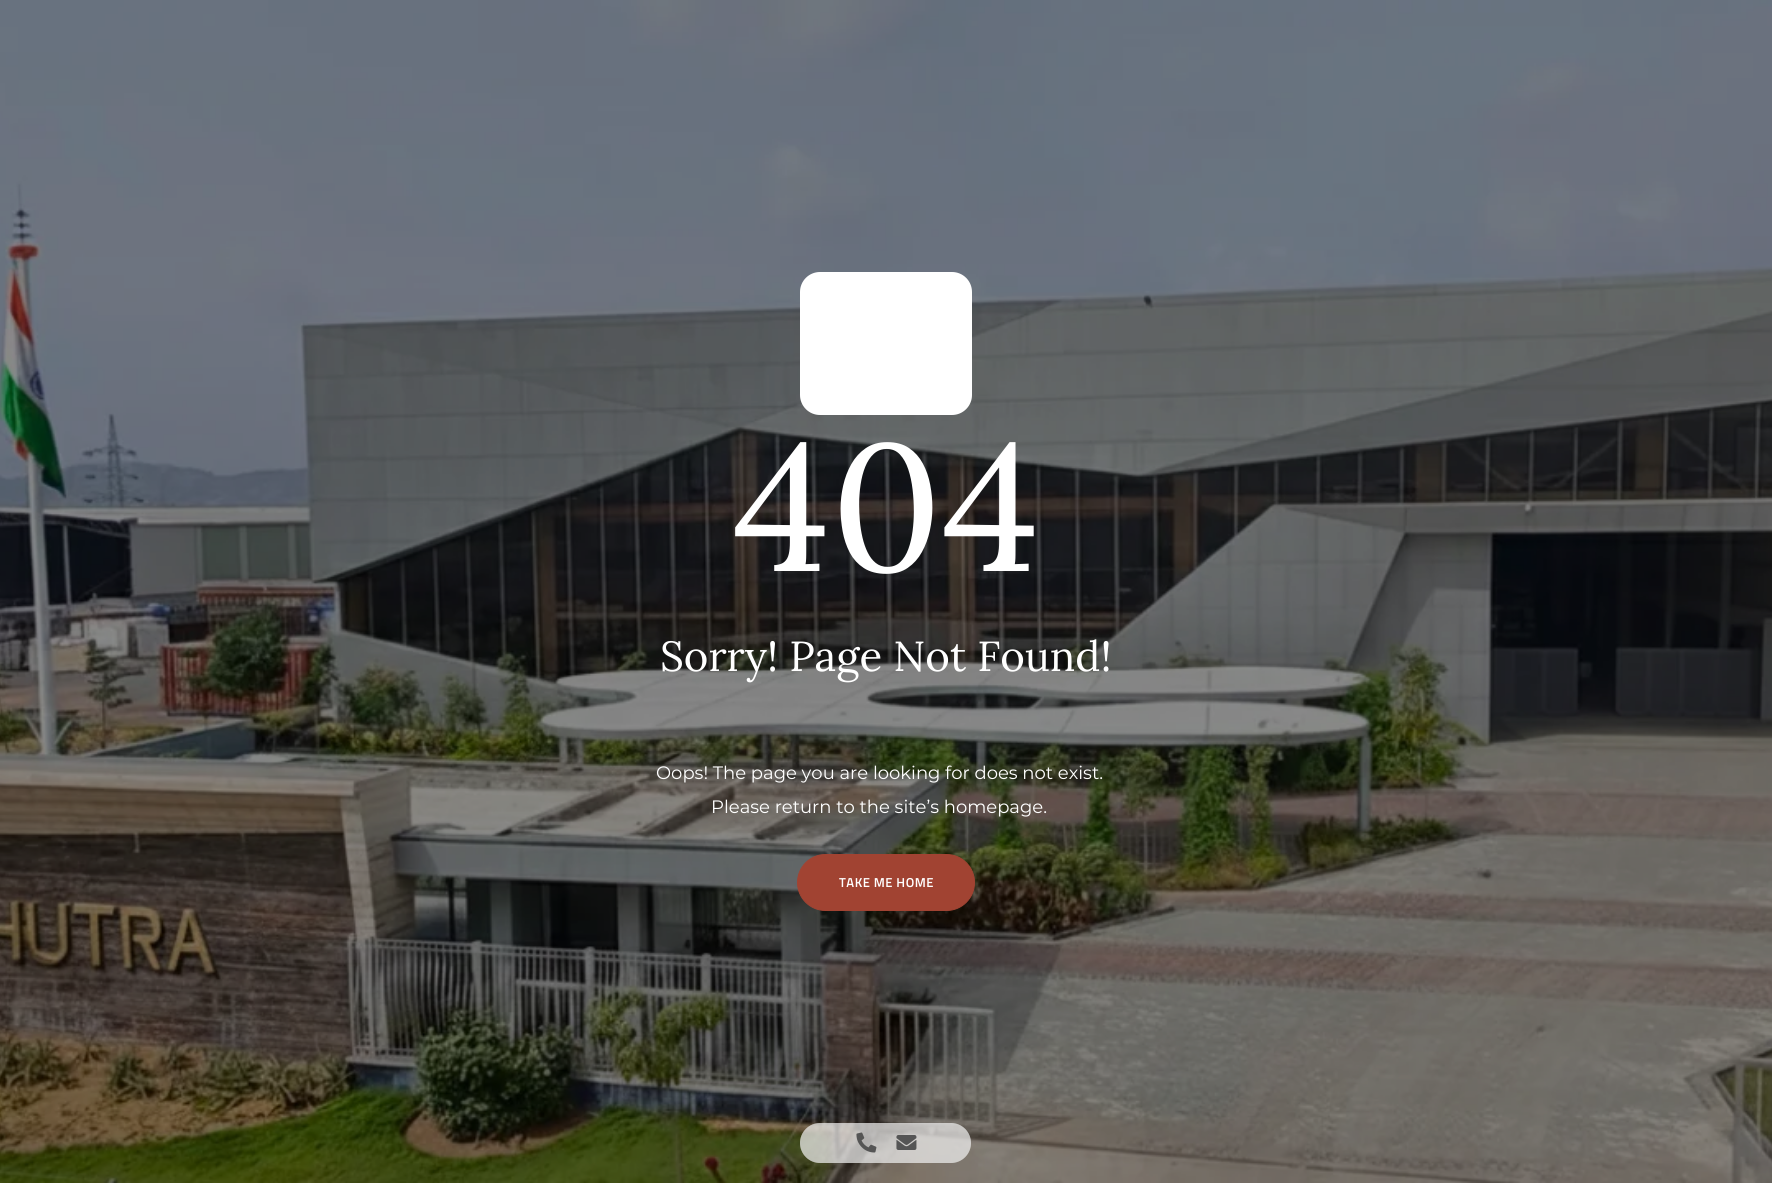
#include <cairo.h>
#include <math.h>
#include <stddef.h>


static void ink(cairo_t *ctx, unsigned color) {
    cairo_set_source_rgb(ctx, (color >> 16) / 255.0, (color >> 8 & 255) / 255.0, (color & 255) / 255.0);
}

static void write_spaced(cairo_t *ctx, double x, double y, const char *s, double letter, double word) {
    cairo_move_to(ctx, x, y);
    while (*s) {
        char ch[5] = {0};
        int n = 0;
        do ch[n++] = *s++; while ((*s & 0xC0) == 0x80);
        cairo_show_text(ctx, ch);
        cairo_rel_move_to(ctx, letter + word * (*ch == ' '), 0);
    }
}

static void round_path(cairo_t *ctx, double x, double y, double w, double h, double r) {
    cairo_new_sub_path(ctx);
    cairo_arc(ctx, x + w - r, y + h - r, r, 0, M_PI / 2);
    cairo_arc(ctx, x + r, y + h - r, r, M_PI / 2, M_PI);
    cairo_arc(ctx, x + r, y + r, r, M_PI, 1.5 * M_PI);
    cairo_arc(ctx, x + w - r, y + r, r, 1.5 * M_PI, 2 * M_PI);
    cairo_close_path(ctx);
}

static void paste(cairo_t *ctx, const char *path, double x, double y, double w, double h) {
    cairo_surface_t *image = cairo_image_surface_create_from_png(path);
    cairo_save(ctx);
    cairo_set_source_surface(ctx, image, x, y);
    cairo_rectangle(ctx, x, y, w, h);
    cairo_fill(ctx);
    cairo_restore(ctx);
    cairo_surface_destroy(image);
}

int main(void) {
    cairo_surface_t *surface = cairo_image_surface_create(CAIRO_FORMAT_RGB24, 1772, 1183);
    cairo_t *ctx = cairo_create(surface);
    cairo_font_options_t *options = cairo_font_options_create();
    cairo_font_options_set_hint_metrics(options, CAIRO_HINT_METRICS_OFF);
    cairo_font_options_set_hint_style(options, CAIRO_HINT_STYLE_NONE);
    cairo_set_font_options(ctx, options);
    cairo_set_miter_limit(ctx, 4);
    ink(ctx, 0xFFFFFF);
    cairo_paint(ctx);
    paste(ctx, "media/1.png", 0, 0, 1772, 1183);
    ink(ctx, 0xFFFFFF);
    round_path(ctx, 800, 272, 172, 143, 20);
    cairo_fill(ctx);
    cairo_select_font_face(ctx, "Lora", CAIRO_FONT_SLANT_NORMAL, CAIRO_FONT_WEIGHT_NORMAL);
    cairo_set_font_size(ctx, 180);
    cairo_move_to(ctx, 733, 571);
    cairo_show_text(ctx, "404");
    cairo_set_font_size(ctx, 42);
    cairo_move_to(ctx, 660, 671);
    cairo_show_text(ctx, "Sorry! Page Not Found!");
    cairo_select_font_face(ctx, "Montserrat", CAIRO_FONT_SLANT_NORMAL, CAIRO_FONT_WEIGHT_NORMAL);
    cairo_set_font_size(ctx, 18);
    cairo_move_to(ctx, 656, 779);
    cairo_show_text(ctx, "Oops! The page you are looking for does not exist.");
    cairo_move_to(ctx, 711, 813);
    cairo_show_text(ctx, "Please return to the site’s homepage.");
    ink(ctx, 0xA14332);
    round_path(ctx, 797.5, 854.5, 177, 56, 28);
    cairo_fill_preserve(ctx);
    cairo_set_line_width(ctx, 1);
    cairo_stroke(ctx);
    cairo_select_font_face(ctx, "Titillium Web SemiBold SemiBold", CAIRO_FONT_SLANT_NORMAL, CAIRO_FONT_WEIGHT_NORMAL);
    cairo_set_font_size(ctx, 13);
    ink(ctx, 0xFFFFFF);
    write_spaced(ctx, 839, 887, "TAKE ME HOME", 0.5, 0);
    cairo_set_source_rgba(ctx, 1, 1, 1, 0.58);
    round_path(ctx, 800, 1123, 171, 40, 20);
    cairo_fill(ctx);
    cairo_set_source_rgba(ctx, 0.875, 0.875, 0.875, 0.32);
    round_path(ctx, 800, 1123, 171, 40, 20);
    cairo_fill(ctx);
    paste(ctx, "media/2.png", 856, 1132, 21, 21);
    paste(ctx, "media/3.png", 896, 1135, 21, 15);
    cairo_surface_write_to_png(surface, "image.png");
    cairo_font_options_destroy(options);
    cairo_destroy(ctx);
    cairo_surface_destroy(surface);
    return 0;
}
